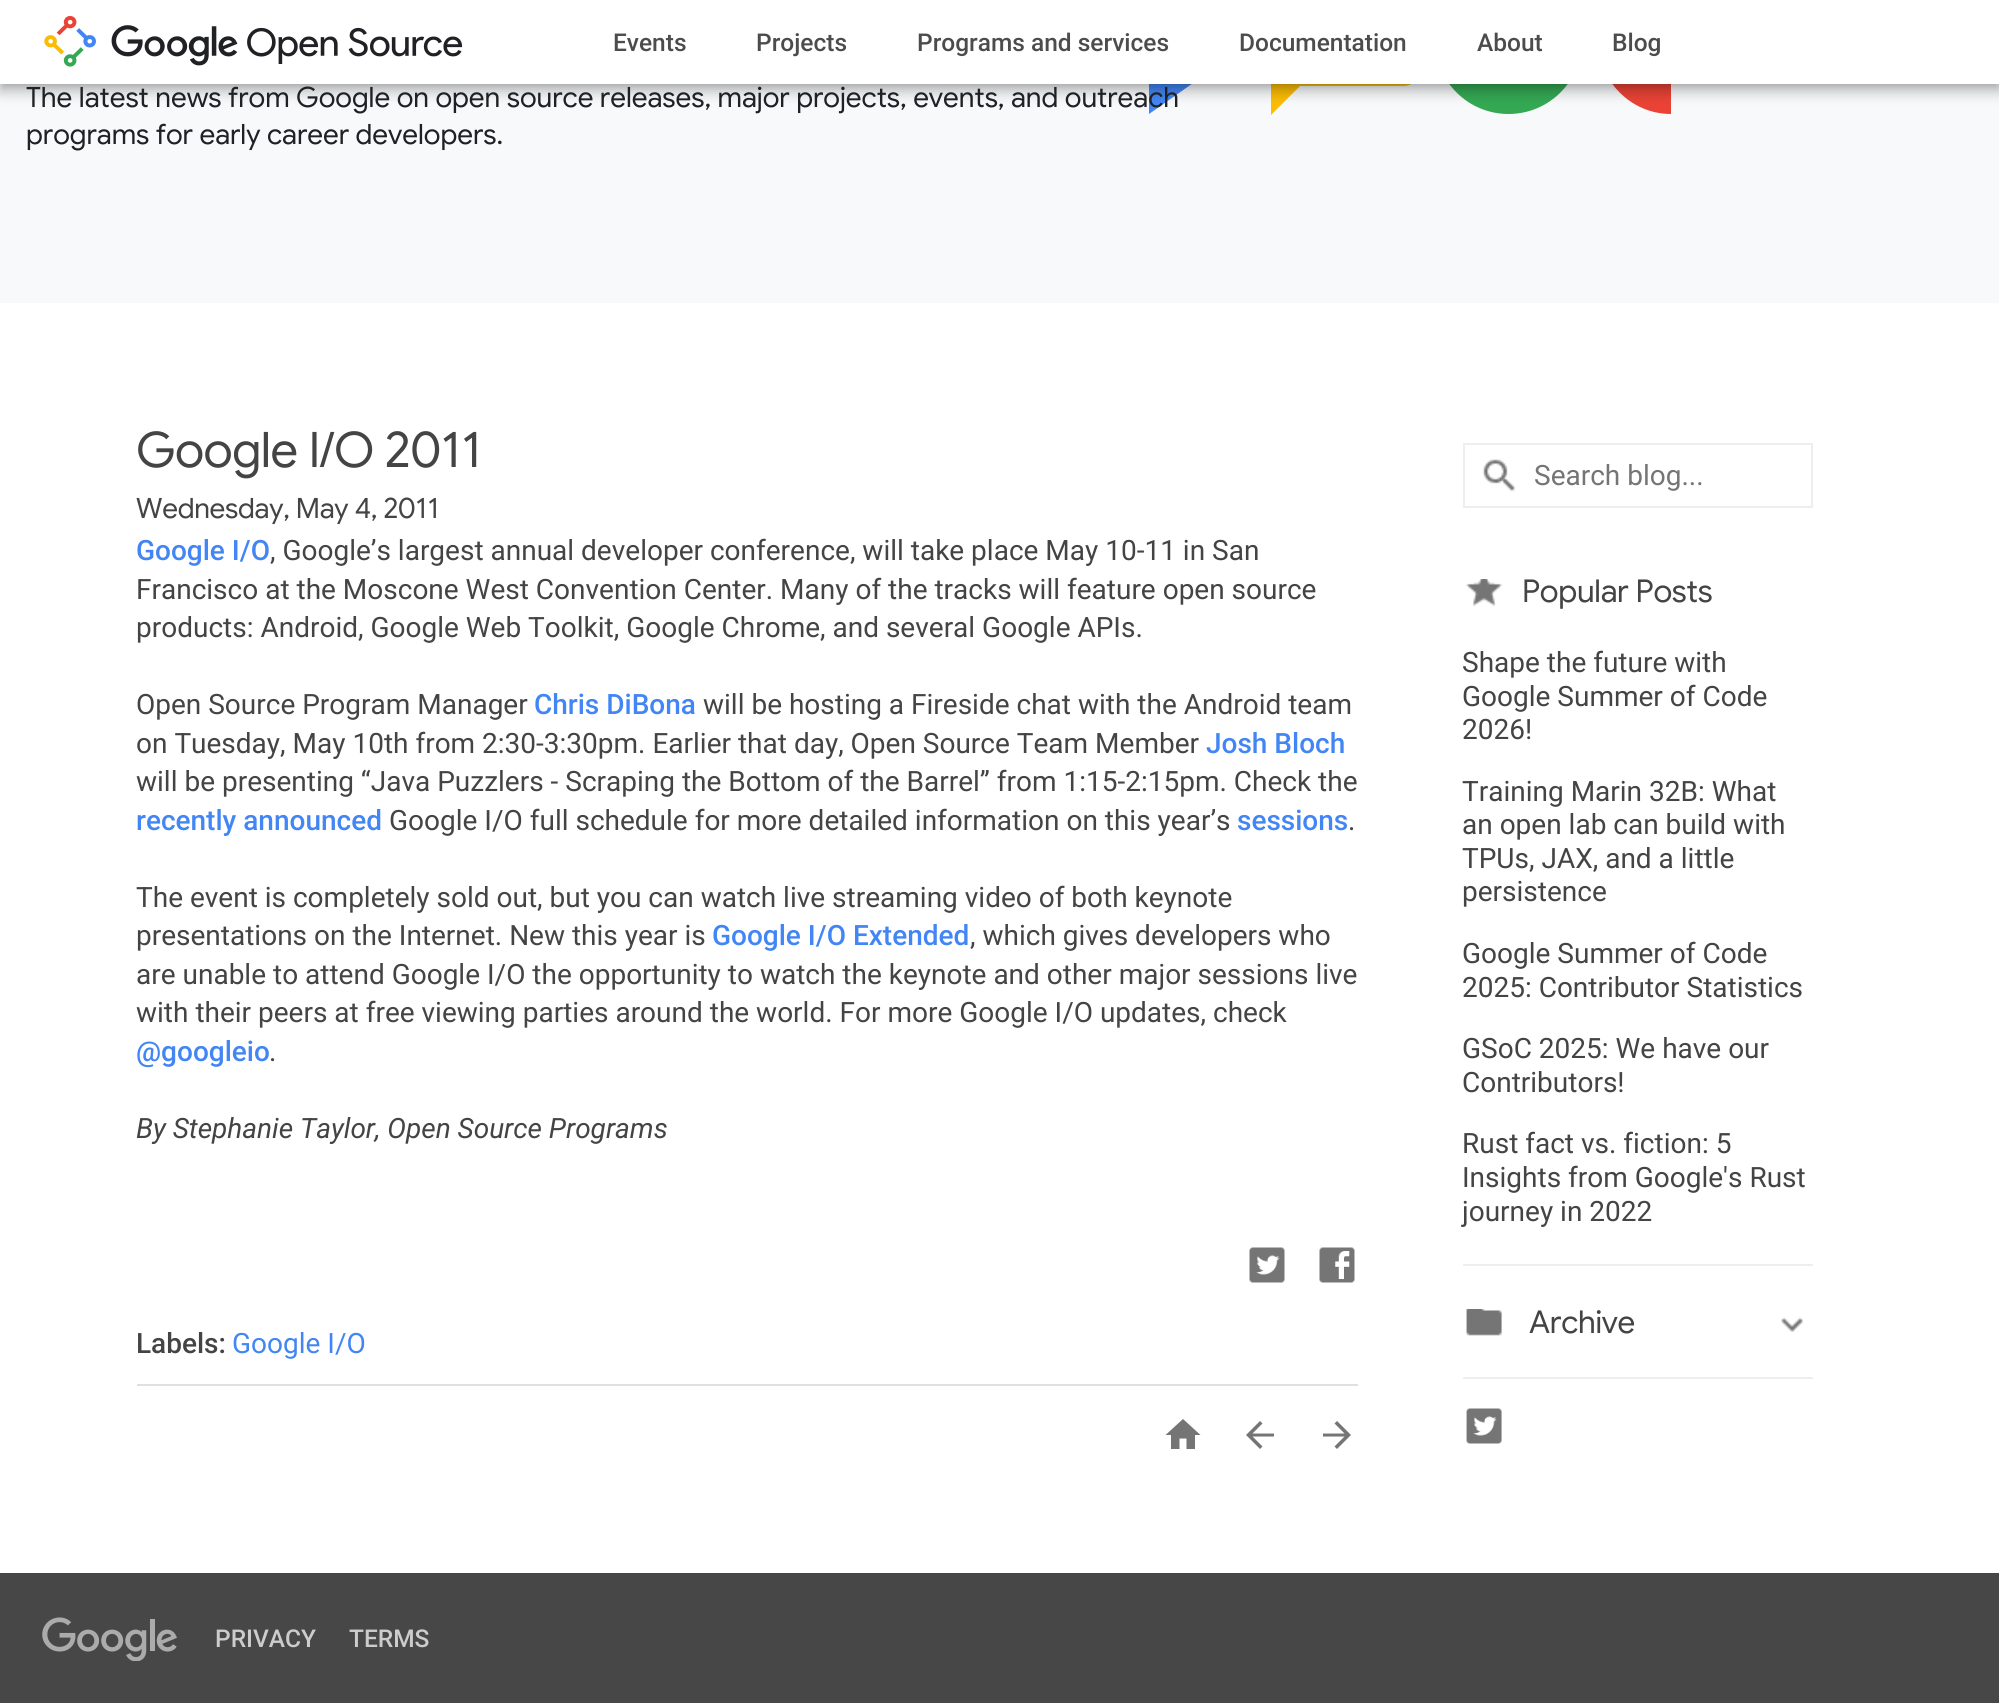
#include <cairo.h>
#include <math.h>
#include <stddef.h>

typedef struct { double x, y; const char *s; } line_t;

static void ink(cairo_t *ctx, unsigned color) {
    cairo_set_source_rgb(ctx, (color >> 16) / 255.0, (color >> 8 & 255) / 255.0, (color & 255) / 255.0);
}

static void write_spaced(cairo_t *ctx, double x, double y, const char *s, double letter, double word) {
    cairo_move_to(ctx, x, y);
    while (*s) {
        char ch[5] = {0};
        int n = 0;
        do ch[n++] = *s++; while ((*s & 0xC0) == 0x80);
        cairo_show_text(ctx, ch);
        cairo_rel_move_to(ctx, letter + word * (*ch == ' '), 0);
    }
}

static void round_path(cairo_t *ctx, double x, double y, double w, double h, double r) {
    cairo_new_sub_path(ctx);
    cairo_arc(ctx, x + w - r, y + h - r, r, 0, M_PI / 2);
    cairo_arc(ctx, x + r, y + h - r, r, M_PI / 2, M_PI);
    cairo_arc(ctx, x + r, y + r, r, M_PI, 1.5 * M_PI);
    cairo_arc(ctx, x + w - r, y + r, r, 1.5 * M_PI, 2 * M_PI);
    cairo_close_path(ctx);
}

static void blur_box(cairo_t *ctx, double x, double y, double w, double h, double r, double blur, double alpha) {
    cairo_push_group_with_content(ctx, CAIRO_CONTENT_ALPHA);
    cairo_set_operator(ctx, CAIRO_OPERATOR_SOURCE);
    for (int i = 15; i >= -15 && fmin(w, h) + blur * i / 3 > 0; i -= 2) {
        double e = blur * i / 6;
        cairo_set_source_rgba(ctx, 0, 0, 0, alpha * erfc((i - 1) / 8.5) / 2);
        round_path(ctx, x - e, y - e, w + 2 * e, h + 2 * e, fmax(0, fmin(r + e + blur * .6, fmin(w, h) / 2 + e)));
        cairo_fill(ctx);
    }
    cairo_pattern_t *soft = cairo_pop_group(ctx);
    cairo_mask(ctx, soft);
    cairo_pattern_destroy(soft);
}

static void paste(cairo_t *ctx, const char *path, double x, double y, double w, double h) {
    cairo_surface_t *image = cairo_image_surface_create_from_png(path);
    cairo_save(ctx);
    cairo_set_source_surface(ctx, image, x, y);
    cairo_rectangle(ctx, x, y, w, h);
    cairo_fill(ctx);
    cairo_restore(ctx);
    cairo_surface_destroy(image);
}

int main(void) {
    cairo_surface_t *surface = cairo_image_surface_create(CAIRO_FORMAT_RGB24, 1999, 1703);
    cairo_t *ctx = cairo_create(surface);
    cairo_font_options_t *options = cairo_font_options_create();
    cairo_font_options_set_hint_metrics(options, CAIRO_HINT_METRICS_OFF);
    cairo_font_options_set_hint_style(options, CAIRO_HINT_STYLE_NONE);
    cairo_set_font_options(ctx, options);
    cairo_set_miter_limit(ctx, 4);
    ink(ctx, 0xFFFFFF);
    cairo_paint(ctx);
    ink(ctx, 0xF8F9FA);
    cairo_rectangle(ctx, 0, 84, 1999, 219);
    cairo_fill(ctx);
    ink(ctx, 0x4285F4);
    cairo_new_path(ctx);
    cairo_move_to(ctx, 1253, 41);
    cairo_line_to(ctx, 1149, 114);
    cairo_line_to(ctx, 1149, -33);
    cairo_close_path(ctx);
    cairo_fill(ctx);
    ink(ctx, 0xFBBC04);
    cairo_set_fill_rule(ctx, CAIRO_FILL_RULE_EVEN_ODD);
    cairo_new_path(ctx);
    cairo_move_to(ctx, 1404, -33);
    cairo_line_to(ctx, 1285, -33);
    cairo_curve_to(ctx, 1277, -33, 1271, -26, 1271, -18);
    cairo_line_to(ctx, 1271, 115);
    cairo_line_to(ctx, 1300, 86);
    cairo_line_to(ctx, 1404, 86);
    cairo_curve_to(ctx, 1412, 86, 1419, 79, 1419, 71);
    cairo_line_to(ctx, 1419, -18);
    cairo_curve_to(ctx, 1419, -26, 1412, -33, 1404, -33);
    cairo_close_path(ctx);
    cairo_move_to(ctx, 1404, 71);
    cairo_line_to(ctx, 1285, 71);
    cairo_line_to(ctx, 1285, -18);
    cairo_line_to(ctx, 1404, -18);
    cairo_close_path(ctx);
    cairo_fill(ctx);
    ink(ctx, 0x34A853);
    cairo_arc(ctx, 1508.5, 40.5, 73.5, 0, 2 * M_PI);
    cairo_fill(ctx);
    ink(ctx, 0xEA4335);
    cairo_set_fill_rule(ctx, CAIRO_FILL_RULE_WINDING);
    cairo_new_path(ctx);
    cairo_move_to(ctx, 1671, -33);
    cairo_curve_to(ctx, 1631, -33, 1598, 0, 1598, 40);
    cairo_curve_to(ctx, 1598, 81, 1631, 114, 1671, 114);
    cairo_close_path(ctx);
    cairo_fill(ctx);
    ink(ctx, 0x000000);
    blur_box(ctx, 0, 7, 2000, 84, 0, 7, 0.28);
    blur_box(ctx, 0, 0, 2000, 84, 0, 3.5, 0.14);
    ink(ctx, 0xFFFFFF);
    cairo_rectangle(ctx, 0, 0, 1999, 84);
    cairo_fill(ctx);
    paste(ctx, "media/1.png", 44, 15, 419, 52);
    cairo_select_font_face(ctx, "Roboto Medium", CAIRO_FONT_SLANT_NORMAL, CAIRO_FONT_WEIGHT_NORMAL);
    cairo_set_font_size(ctx, 24.5);
    ink(ctx, 0x4C4C4C);
    {
        static const line_t items[] = {
            {613, 51, "Events"},
            {756, 51, "Projects"},
            {917, 51, "Programs and services"},
            {1239, 51, "Documentation"},
            {1477, 51, "About"},
            {1612, 51, "Blog"},
        };
        for (size_t i = 0; i < sizeof items / sizeof *items; i++) {
            cairo_move_to(ctx, items[i].x, items[i].y);
            cairo_show_text(ctx, items[i].s);
        }
    }
    cairo_select_font_face(ctx, "Google Sans", CAIRO_FONT_SLANT_NORMAL, CAIRO_FONT_WEIGHT_NORMAL);
    cairo_set_font_size(ctx, 28);
    ink(ctx, 0x202124);
    cairo_move_to(ctx, 26, 107);
    cairo_show_text(ctx, "The latest news from Google on open source releases, major projects, events, and outreach");
    cairo_move_to(ctx, 26, 144);
    cairo_show_text(ctx, "programs for early career developers.");
    cairo_set_font_size(ctx, 49);
    ink(ctx, 0x444444);
    write_spaced(ctx, 136, 467, "Google I/O 2011", -0.5, 0);
    cairo_set_font_size(ctx, 28);
    write_spaced(ctx, 136, 518, "Wednesday, May 4, 2011", -0.25, 0);
    cairo_select_font_face(ctx, "Roboto Medium", CAIRO_FONT_SLANT_NORMAL, CAIRO_FONT_WEIGHT_NORMAL);
    ink(ctx, 0x4285F4);
    cairo_move_to(ctx, 136, 560);
    cairo_show_text(ctx, "Google I/O");
    cairo_select_font_face(ctx, "Roboto", CAIRO_FONT_SLANT_NORMAL, CAIRO_FONT_WEIGHT_NORMAL);
    ink(ctx, 0x444444);
    {
        static const line_t items[] = {
            {270, 560, ", Google’s largest annual developer conference, will take place May 10-11 in San"},
            {136, 599, "Francisco at the Moscone West Convention Center. Many of the tracks will feature open source"},
            {136, 637, "products: Android, Google Web Toolkit, Google Chrome, and several Google APIs."},
            {136, 714, "Open Source Program Manager"},
        };
        for (size_t i = 0; i < sizeof items / sizeof *items; i++) {
            cairo_move_to(ctx, items[i].x, items[i].y);
            cairo_show_text(ctx, items[i].s);
        }
    }
    cairo_select_font_face(ctx, "Roboto Medium", CAIRO_FONT_SLANT_NORMAL, CAIRO_FONT_WEIGHT_NORMAL);
    ink(ctx, 0x4285F4);
    cairo_move_to(ctx, 534, 714);
    cairo_show_text(ctx, "Chris DiBona");
    cairo_select_font_face(ctx, "Roboto", CAIRO_FONT_SLANT_NORMAL, CAIRO_FONT_WEIGHT_NORMAL);
    ink(ctx, 0x444444);
    cairo_move_to(ctx, 703, 714);
    cairo_show_text(ctx, "will be hosting a Fireside chat with the Android team");
    cairo_move_to(ctx, 136, 753);
    cairo_show_text(ctx, "on Tuesday, May 10th from 2:30-3:30pm. Earlier that day, Open Source Team Member");
    cairo_select_font_face(ctx, "Roboto Medium", CAIRO_FONT_SLANT_NORMAL, CAIRO_FONT_WEIGHT_NORMAL);
    ink(ctx, 0x4285F4);
    cairo_move_to(ctx, 1206, 753);
    cairo_show_text(ctx, "Josh Bloch");
    cairo_select_font_face(ctx, "Roboto", CAIRO_FONT_SLANT_NORMAL, CAIRO_FONT_WEIGHT_NORMAL);
    ink(ctx, 0x444444);
    cairo_move_to(ctx, 136, 791);
    cairo_show_text(ctx, "will be presenting “Java Puzzlers - Scraping the Bottom of the Barrel” from 1:15-2:15pm. Check the");
    cairo_select_font_face(ctx, "Roboto Medium", CAIRO_FONT_SLANT_NORMAL, CAIRO_FONT_WEIGHT_NORMAL);
    ink(ctx, 0x4285F4);
    cairo_move_to(ctx, 136, 830);
    cairo_show_text(ctx, "recently announced");
    cairo_select_font_face(ctx, "Roboto", CAIRO_FONT_SLANT_NORMAL, CAIRO_FONT_WEIGHT_NORMAL);
    ink(ctx, 0x444444);
    cairo_move_to(ctx, 389, 830);
    cairo_show_text(ctx, "Google I/O full schedule for more detailed information on this year’s");
    cairo_select_font_face(ctx, "Roboto Medium", CAIRO_FONT_SLANT_NORMAL, CAIRO_FONT_WEIGHT_NORMAL);
    ink(ctx, 0x4285F4);
    cairo_move_to(ctx, 1237, 830);
    cairo_show_text(ctx, "sessions");
    cairo_select_font_face(ctx, "Roboto", CAIRO_FONT_SLANT_NORMAL, CAIRO_FONT_WEIGHT_NORMAL);
    ink(ctx, 0x444444);
    {
        static const line_t items[] = {
            {1348, 830, "."},
            {136, 907, "The event is completely sold out, but you can watch live streaming video of both keynote"},
            {136, 945, "presentations on the Internet. New this year is"},
        };
        for (size_t i = 0; i < sizeof items / sizeof *items; i++) {
            cairo_move_to(ctx, items[i].x, items[i].y);
            cairo_show_text(ctx, items[i].s);
        }
    }
    cairo_select_font_face(ctx, "Roboto Medium", CAIRO_FONT_SLANT_NORMAL, CAIRO_FONT_WEIGHT_NORMAL);
    ink(ctx, 0x4285F4);
    cairo_move_to(ctx, 712, 945);
    cairo_show_text(ctx, "Google I/O Extended");
    cairo_select_font_face(ctx, "Roboto", CAIRO_FONT_SLANT_NORMAL, CAIRO_FONT_WEIGHT_NORMAL);
    ink(ctx, 0x444444);
    {
        static const line_t items[] = {
            {970, 945, ", which gives developers who"},
            {136, 984, "are unable to attend Google I/O the opportunity to watch the keynote and other major sessions live"},
            {136, 1022, "with their peers at free viewing parties around the world. For more Google I/O updates, check"},
        };
        for (size_t i = 0; i < sizeof items / sizeof *items; i++) {
            cairo_move_to(ctx, items[i].x, items[i].y);
            cairo_show_text(ctx, items[i].s);
        }
    }
    cairo_select_font_face(ctx, "Roboto Medium", CAIRO_FONT_SLANT_NORMAL, CAIRO_FONT_WEIGHT_NORMAL);
    ink(ctx, 0x4285F4);
    cairo_move_to(ctx, 136, 1061);
    cairo_show_text(ctx, "@googleio");
    cairo_select_font_face(ctx, "Roboto", CAIRO_FONT_SLANT_NORMAL, CAIRO_FONT_WEIGHT_NORMAL);
    ink(ctx, 0x444444);
    cairo_move_to(ctx, 269, 1061);
    cairo_show_text(ctx, ".");
    cairo_select_font_face(ctx, "Roboto", CAIRO_FONT_SLANT_ITALIC, CAIRO_FONT_WEIGHT_NORMAL);
    cairo_move_to(ctx, 136, 1138);
    cairo_show_text(ctx, "By Stephanie Taylor, Open Source Programs");
    paste(ctx, "media/2.png", 1249, 1247, 36, 36);
    paste(ctx, "media/3.png", 1319, 1247, 36, 36);
    cairo_select_font_face(ctx, "Roboto Medium", CAIRO_FONT_SLANT_NORMAL, CAIRO_FONT_WEIGHT_NORMAL);
    cairo_move_to(ctx, 136, 1353);
    cairo_show_text(ctx, "Labels:");
    cairo_select_font_face(ctx, "Roboto", CAIRO_FONT_SLANT_NORMAL, CAIRO_FONT_WEIGHT_NORMAL);
    ink(ctx, 0x4285F4);
    cairo_move_to(ctx, 232, 1353);
    cairo_show_text(ctx, "Google I/O");
    ink(ctx, 0xE0E0E0);
    cairo_rectangle(ctx, 137, 1384, 1221, 2);
    cairo_fill(ctx);
    ink(ctx, 0x757575);
    cairo_new_path(ctx);
    cairo_move_to(ctx, 1179.5, 1449);
    cairo_line_to(ctx, 1171, 1449);
    cairo_line_to(ctx, 1171, 1435);
    cairo_line_to(ctx, 1165.5, 1435);
    cairo_line_to(ctx, 1183, 1419);
    cairo_line_to(ctx, 1200.5, 1435);
    cairo_line_to(ctx, 1195, 1435);
    cairo_line_to(ctx, 1195, 1449);
    cairo_line_to(ctx, 1186.5, 1449);
    cairo_line_to(ctx, 1186.5, 1438.5);
    cairo_line_to(ctx, 1179.5, 1438.5);
    cairo_close_path(ctx);
    cairo_fill(ctx);
    cairo_new_path(ctx);
    cairo_move_to(ctx, 1274, 1433.5);
    cairo_line_to(ctx, 1274, 1436.5);
    cairo_line_to(ctx, 1252.5, 1436.5);
    cairo_line_to(ctx, 1262.5, 1446.5);
    cairo_line_to(ctx, 1260, 1449);
    cairo_line_to(ctx, 1246, 1435);
    cairo_line_to(ctx, 1260, 1421);
    cairo_line_to(ctx, 1262.5, 1423.5);
    cairo_line_to(ctx, 1252.5, 1433.5);
    cairo_close_path(ctx);
    cairo_fill(ctx);
    cairo_new_path(ctx);
    cairo_move_to(ctx, 1337, 1421);
    cairo_line_to(ctx, 1351, 1435);
    cairo_line_to(ctx, 1337, 1449);
    cairo_line_to(ctx, 1334.5, 1446.5);
    cairo_line_to(ctx, 1344.5, 1436.5);
    cairo_line_to(ctx, 1323, 1436.5);
    cairo_line_to(ctx, 1323, 1433.5);
    cairo_line_to(ctx, 1344.5, 1433.5);
    cairo_line_to(ctx, 1334.5, 1423.5);
    cairo_close_path(ctx);
    cairo_fill(ctx);
    paste(ctx, "media/4.png", 1483, 459, 33, 33);
    cairo_rectangle(ctx, 1464, 444, 348, 63);
    ink(ctx, 0xEEEEEE);
    cairo_stroke(ctx);
    ink(ctx, 0x757575);
    cairo_move_to(ctx, 1534, 485);
    cairo_show_text(ctx, "Search blog...");
    ink(ctx, 0xEEEEEE);
    cairo_rectangle(ctx, 1463, 1264, 350, 2);
    cairo_fill(ctx);
    paste(ctx, "media/5.png", 1466, 579, 36, 27);
    cairo_select_font_face(ctx, "Google Sans", CAIRO_FONT_SLANT_NORMAL, CAIRO_FONT_WEIGHT_NORMAL);
    cairo_set_font_size(ctx, 31.5);
    ink(ctx, 0x444444);
    write_spaced(ctx, 1522, 602, "Popular Posts", -0.25, 0);
    cairo_select_font_face(ctx, "Roboto", CAIRO_FONT_SLANT_NORMAL, CAIRO_FONT_WEIGHT_NORMAL);
    cairo_set_font_size(ctx, 28);
    {
        static const line_t items[] = {
            {1462, 672, "Shape the future with"},
            {1462, 706, "Google Summer of Code"},
            {1462, 739, "2026!"},
            {1462, 801, "Training Marin 32B: What"},
            {1462, 834, "an open lab can build with"},
            {1462, 868, "TPUs, JAX, and a little"},
            {1462, 901, "persistence"},
            {1462, 963, "Google Summer of Code"},
            {1462, 997, "2025: Contributor Statistics"},
            {1462, 1058, "GSoC 2025: We have our"},
            {1462, 1092, "Contributors!"},
            {1462, 1153, "Rust fact vs. fiction: 5"},
            {1462, 1187, "Insights from Google's Rust"},
            {1462, 1221, "journey in 2022"},
        };
        for (size_t i = 0; i < sizeof items / sizeof *items; i++) {
            cairo_move_to(ctx, items[i].x, items[i].y);
            cairo_show_text(ctx, items[i].s);
        }
    }
    ink(ctx, 0xEEEEEE);
    cairo_rectangle(ctx, 1463, 1377, 350, 2);
    cairo_fill(ctx);
    paste(ctx, "media/6.png", 1466, 1309, 36, 27);
    cairo_select_font_face(ctx, "Google Sans", CAIRO_FONT_SLANT_NORMAL, CAIRO_FONT_WEIGHT_NORMAL);
    cairo_set_font_size(ctx, 31.5);
    ink(ctx, 0x444444);
    write_spaced(ctx, 1529, 1333, "Archive", -0.25, 0);
    paste(ctx, "media/7.png", 1781, 1317, 22, 15);
    paste(ctx, "media/8.png", 1466, 1408, 36, 36);
    ink(ctx, 0x474747);
    cairo_rectangle(ctx, 0, 1573, 1999, 130);
    cairo_fill(ctx);
    paste(ctx, "media/9.png", 42, 1617, 135, 44);
    cairo_select_font_face(ctx, "Roboto Medium", CAIRO_FONT_SLANT_NORMAL, CAIRO_FONT_WEIGHT_NORMAL);
    cairo_set_font_size(ctx, 24.5);
    ink(ctx, 0xCCCCCC);
    cairo_move_to(ctx, 215, 1647);
    cairo_show_text(ctx, "PRIVACY");
    cairo_move_to(ctx, 349, 1647);
    cairo_show_text(ctx, "TERMS");
    cairo_surface_write_to_png(surface, "image.png");
    cairo_font_options_destroy(options);
    cairo_destroy(ctx);
    cairo_surface_destroy(surface);
    return 0;
}
